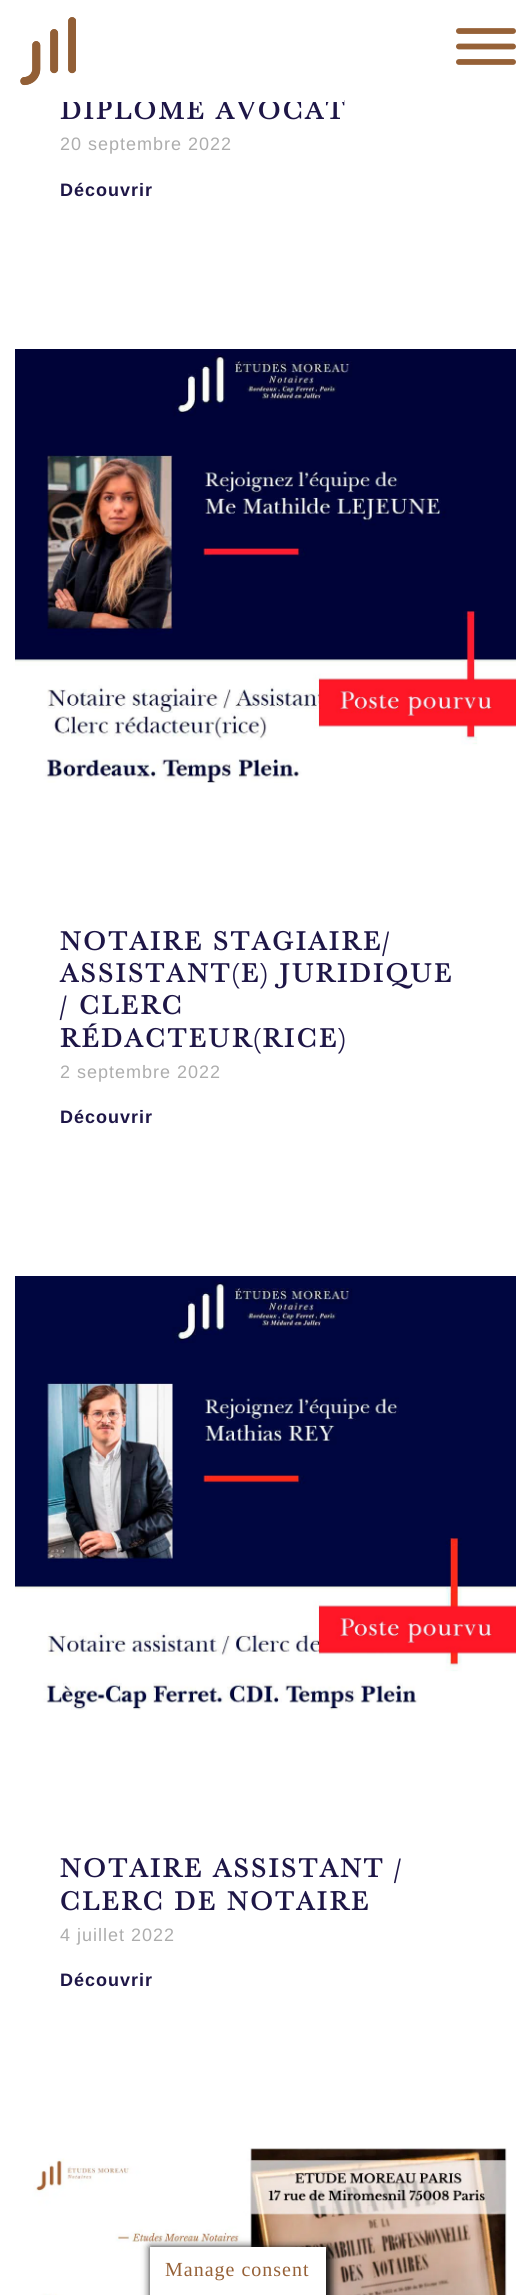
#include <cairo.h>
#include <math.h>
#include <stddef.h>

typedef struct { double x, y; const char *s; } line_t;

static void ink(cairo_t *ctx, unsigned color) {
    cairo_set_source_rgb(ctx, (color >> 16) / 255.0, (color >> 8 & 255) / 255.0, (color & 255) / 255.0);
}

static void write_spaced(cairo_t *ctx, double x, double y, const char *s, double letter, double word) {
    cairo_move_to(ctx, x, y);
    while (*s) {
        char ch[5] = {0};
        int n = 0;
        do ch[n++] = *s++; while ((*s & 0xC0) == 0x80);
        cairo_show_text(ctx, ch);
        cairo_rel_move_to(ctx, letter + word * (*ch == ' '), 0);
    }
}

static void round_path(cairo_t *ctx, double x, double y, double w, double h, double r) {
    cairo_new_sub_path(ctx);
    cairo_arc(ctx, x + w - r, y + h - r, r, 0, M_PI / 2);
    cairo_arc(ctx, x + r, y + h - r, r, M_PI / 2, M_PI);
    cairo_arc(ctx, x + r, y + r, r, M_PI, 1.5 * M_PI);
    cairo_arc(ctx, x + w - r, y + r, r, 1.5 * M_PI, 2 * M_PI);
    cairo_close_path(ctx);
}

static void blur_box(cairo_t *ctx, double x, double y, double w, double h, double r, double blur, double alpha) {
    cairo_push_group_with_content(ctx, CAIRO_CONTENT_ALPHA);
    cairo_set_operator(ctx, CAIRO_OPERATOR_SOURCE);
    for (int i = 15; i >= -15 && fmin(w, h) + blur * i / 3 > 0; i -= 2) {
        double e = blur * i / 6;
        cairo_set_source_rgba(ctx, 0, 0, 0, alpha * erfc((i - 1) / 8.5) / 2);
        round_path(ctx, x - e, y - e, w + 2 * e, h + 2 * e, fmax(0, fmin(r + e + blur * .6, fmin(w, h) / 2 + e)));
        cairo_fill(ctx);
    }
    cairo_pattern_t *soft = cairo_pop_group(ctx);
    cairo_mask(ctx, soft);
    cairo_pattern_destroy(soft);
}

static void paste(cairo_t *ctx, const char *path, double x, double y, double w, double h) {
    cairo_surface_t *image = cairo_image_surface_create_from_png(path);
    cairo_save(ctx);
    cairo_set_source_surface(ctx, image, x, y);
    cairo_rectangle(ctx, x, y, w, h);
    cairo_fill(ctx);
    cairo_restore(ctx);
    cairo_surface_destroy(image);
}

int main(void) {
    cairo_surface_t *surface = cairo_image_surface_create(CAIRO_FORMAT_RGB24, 530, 2295);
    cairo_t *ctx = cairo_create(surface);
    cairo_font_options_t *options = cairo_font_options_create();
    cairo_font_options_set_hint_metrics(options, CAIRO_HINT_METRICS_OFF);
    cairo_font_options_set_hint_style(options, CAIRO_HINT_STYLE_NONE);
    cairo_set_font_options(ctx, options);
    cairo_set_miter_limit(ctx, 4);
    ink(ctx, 0xFFFFFF);
    cairo_paint(ctx);
    cairo_select_font_face(ctx, "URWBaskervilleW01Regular", CAIRO_FONT_SLANT_NORMAL, CAIRO_FONT_WEIGHT_BOLD);
    cairo_set_font_size(ctx, 27);
    ink(ctx, 0x1E1647);
    write_spaced(ctx, 60, 119, "DIPLÔMÉ AVOCAT", 2.7, 0);
    ink(ctx, 0xFFFFFF);
    cairo_rectangle(ctx, 60, 95, 284, 7);
    cairo_fill(ctx);
    paste(ctx, "media/1.png", 20, 17, 56, 69);
    paste(ctx, "media/2.png", 456, 28, 60, 37);
    cairo_select_font_face(ctx, "Liberation Sans", CAIRO_FONT_SLANT_NORMAL, CAIRO_FONT_WEIGHT_NORMAL);
    cairo_set_font_size(ctx, 18);
    ink(ctx, 0xADADAD);
    write_spaced(ctx, 60, 150, "20 septembre 2022", 1, 0);
    cairo_select_font_face(ctx, "Liberation Sans", CAIRO_FONT_SLANT_NORMAL, CAIRO_FONT_WEIGHT_BOLD);
    ink(ctx, 0x1E1647);
    write_spaced(ctx, 60, 196, "Découvrir", 1, 0);
    paste(ctx, "media/3.png", 15, 349, 501, 434);
    cairo_select_font_face(ctx, "URWBaskervilleW01Regular", CAIRO_FONT_SLANT_NORMAL, CAIRO_FONT_WEIGHT_BOLD);
    cairo_set_font_size(ctx, 27);
    {
        static const line_t items[] = {
            {60, 950, "NOTAIRE STAGIAIRE/"},
            {60, 982, "ASSISTANT(E) JURIDIQUE"},
            {60, 1014, "/ CLERC"},
            {60, 1047, "RÉDACTEUR(RICE)"},
        };
        for (size_t i = 0; i < sizeof items / sizeof *items; i++) {
            write_spaced(ctx, items[i].x, items[i].y, items[i].s, 2.7, 0);
        }
    }
    cairo_select_font_face(ctx, "Liberation Sans", CAIRO_FONT_SLANT_NORMAL, CAIRO_FONT_WEIGHT_NORMAL);
    cairo_set_font_size(ctx, 18);
    ink(ctx, 0xADADAD);
    write_spaced(ctx, 60, 1078, "2 septembre 2022", 1, 0);
    cairo_select_font_face(ctx, "Liberation Sans", CAIRO_FONT_SLANT_NORMAL, CAIRO_FONT_WEIGHT_BOLD);
    ink(ctx, 0x1E1647);
    write_spaced(ctx, 60, 1123, "Découvrir", 1, 0);
    paste(ctx, "media/4.png", 15, 1276, 501, 434);
    cairo_select_font_face(ctx, "URWBaskervilleW01Regular", CAIRO_FONT_SLANT_NORMAL, CAIRO_FONT_WEIGHT_BOLD);
    cairo_set_font_size(ctx, 27);
    write_spaced(ctx, 60, 1877, "NOTAIRE ASSISTANT /", 2.7, 0);
    write_spaced(ctx, 60, 1910, "CLERC DE NOTAIRE", 2.7, 0);
    cairo_select_font_face(ctx, "Liberation Sans", CAIRO_FONT_SLANT_NORMAL, CAIRO_FONT_WEIGHT_NORMAL);
    cairo_set_font_size(ctx, 18);
    ink(ctx, 0xADADAD);
    write_spaced(ctx, 60, 1941, "4 juillet 2022", 1, 0);
    cairo_select_font_face(ctx, "Liberation Sans", CAIRO_FONT_SLANT_NORMAL, CAIRO_FONT_WEIGHT_BOLD);
    ink(ctx, 0x1E1647);
    write_spaced(ctx, 60, 1986, "Découvrir", 1, 0);
    paste(ctx, "media/5.png", 25, 2140, 482, 155);
    ink(ctx, 0x161616);
    blur_box(ctx, 150, 2247, 182, 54, 0, 4, 1);
    ink(ctx, 0xFFFFFF);
    cairo_rectangle(ctx, 150, 2247, 176, 48);
    cairo_fill(ctx);
    cairo_select_font_face(ctx, "Liberation Serif", CAIRO_FONT_SLANT_NORMAL, CAIRO_FONT_WEIGHT_NORMAL);
    cairo_set_font_size(ctx, 20);
    ink(ctx, 0x966137);
    write_spaced(ctx, 165, 2276, "Manage consent", 1, 0);
    cairo_surface_write_to_png(surface, "image.png");
    cairo_font_options_destroy(options);
    cairo_destroy(ctx);
    cairo_surface_destroy(surface);
    return 0;
}
